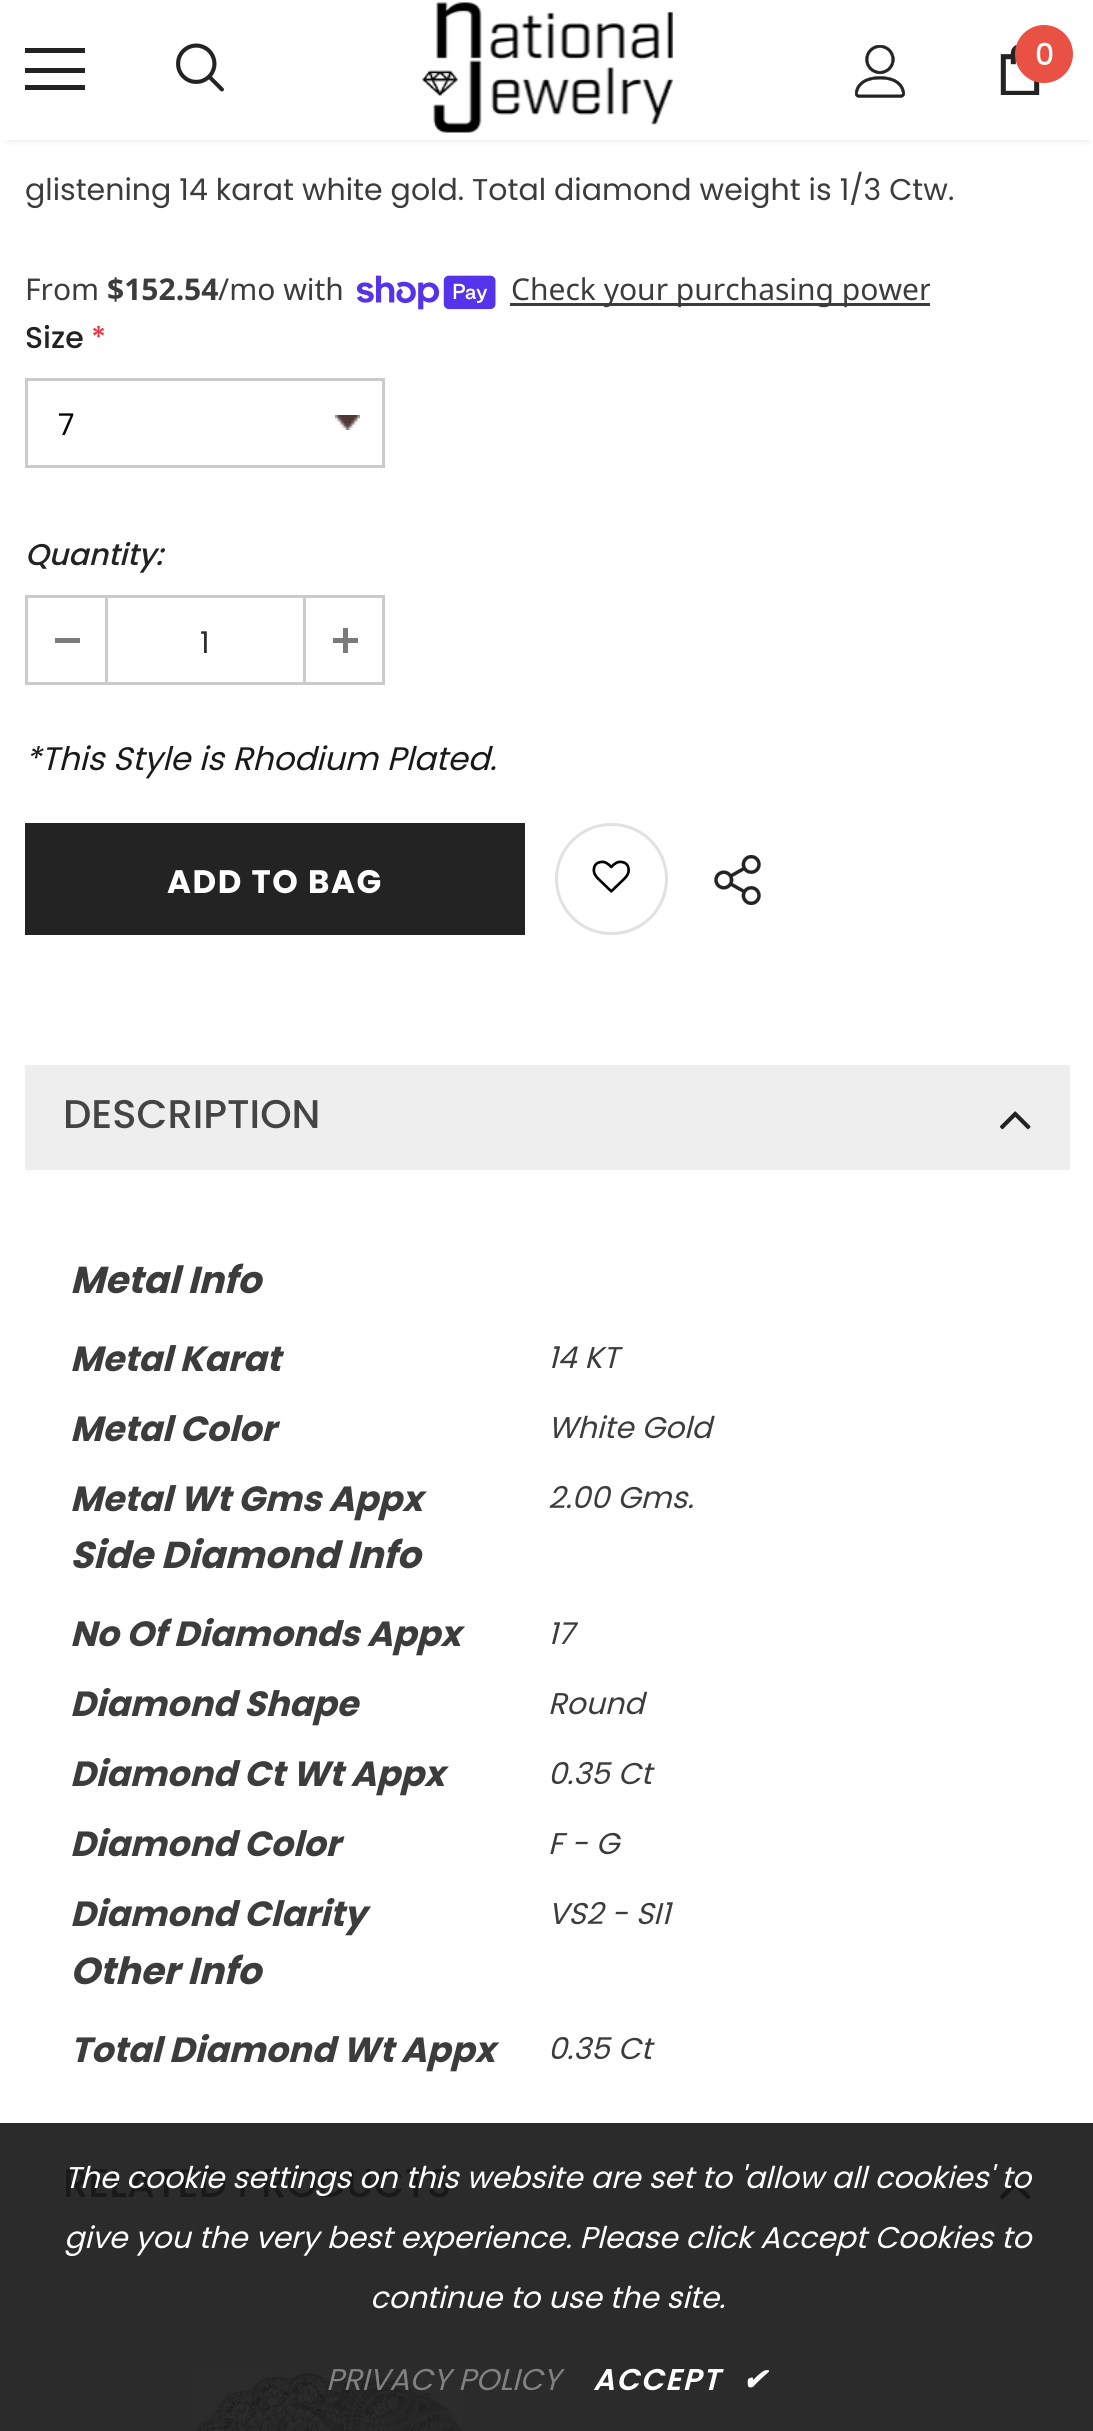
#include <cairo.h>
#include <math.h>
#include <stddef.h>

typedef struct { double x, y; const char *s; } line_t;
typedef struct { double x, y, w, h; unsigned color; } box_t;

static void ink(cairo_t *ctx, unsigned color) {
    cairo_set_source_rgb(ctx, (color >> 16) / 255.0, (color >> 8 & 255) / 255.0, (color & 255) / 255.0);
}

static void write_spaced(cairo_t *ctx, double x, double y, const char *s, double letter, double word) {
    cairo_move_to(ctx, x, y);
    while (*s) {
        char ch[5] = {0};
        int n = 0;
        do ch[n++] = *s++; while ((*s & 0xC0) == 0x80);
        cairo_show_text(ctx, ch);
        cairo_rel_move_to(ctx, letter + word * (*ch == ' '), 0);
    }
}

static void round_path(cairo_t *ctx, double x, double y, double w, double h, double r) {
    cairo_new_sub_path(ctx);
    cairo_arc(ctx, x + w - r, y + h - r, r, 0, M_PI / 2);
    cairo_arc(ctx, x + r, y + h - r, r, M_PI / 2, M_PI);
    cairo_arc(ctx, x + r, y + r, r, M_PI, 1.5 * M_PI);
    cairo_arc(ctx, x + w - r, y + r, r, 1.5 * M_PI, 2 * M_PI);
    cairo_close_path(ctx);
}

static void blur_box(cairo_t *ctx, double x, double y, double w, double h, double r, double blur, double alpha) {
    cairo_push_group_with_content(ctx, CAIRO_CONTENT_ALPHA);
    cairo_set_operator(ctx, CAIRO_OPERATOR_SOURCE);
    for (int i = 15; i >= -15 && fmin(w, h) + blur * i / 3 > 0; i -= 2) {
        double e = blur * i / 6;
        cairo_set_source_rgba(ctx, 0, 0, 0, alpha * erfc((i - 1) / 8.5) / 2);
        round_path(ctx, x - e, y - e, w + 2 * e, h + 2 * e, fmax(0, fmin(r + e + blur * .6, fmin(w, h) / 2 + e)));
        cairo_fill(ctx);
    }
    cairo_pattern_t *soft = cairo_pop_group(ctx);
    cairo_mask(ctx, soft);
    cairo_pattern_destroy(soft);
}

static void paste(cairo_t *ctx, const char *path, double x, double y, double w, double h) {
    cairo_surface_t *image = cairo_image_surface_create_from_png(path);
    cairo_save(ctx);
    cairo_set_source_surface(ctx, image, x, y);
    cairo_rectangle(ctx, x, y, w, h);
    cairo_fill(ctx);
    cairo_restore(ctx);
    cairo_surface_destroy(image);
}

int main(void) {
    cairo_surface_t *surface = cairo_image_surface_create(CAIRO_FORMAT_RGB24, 1093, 2431);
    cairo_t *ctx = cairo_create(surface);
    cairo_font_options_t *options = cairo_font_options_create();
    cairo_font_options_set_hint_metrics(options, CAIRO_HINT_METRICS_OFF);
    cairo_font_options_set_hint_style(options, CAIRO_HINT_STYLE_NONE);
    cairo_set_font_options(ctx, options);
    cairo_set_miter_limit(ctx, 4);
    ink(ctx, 0xFFFFFF);
    cairo_paint(ctx);
    ink(ctx, 0x2B2B2B);
    cairo_rectangle(ctx, 0, 2123, 1093, 308);
    cairo_fill(ctx);
    ink(ctx, 0x000000);
    blur_box(ctx, 8, 15, 1080, 125, 0, 4, 0.12);
    {
        static const box_t items[] = {
            {2, 9, 1091, 131, 0xFFFFFF},
            {25, 48, 60, 5, 0x232323},
            {25, 68, 60, 5, 0x232323},
            {25, 85, 60, 5, 0x232323},
        };
        for (size_t i = 0; i < sizeof items / sizeof *items; i++) {
            ink(ctx, items[i].color);
            cairo_rectangle(ctx, items[i].x, items[i].y, items[i].w, items[i].h);
            cairo_fill(ctx);
        }
    }
    paste(ctx, "media/1.png", 176, 43, 48, 49);
    paste(ctx, "media/2.png", 422, 2, 251, 131);
    paste(ctx, "media/3.png", 855, 45, 51, 53);
    paste(ctx, "media/4.png", 1000, 45, 40, 50);
    ink(ctx, 0xE95144);
    cairo_arc(ctx, 1044, 54, 29, 0, 2 * M_PI);
    cairo_fill(ctx);
    cairo_select_font_face(ctx, "Poppins Medium", CAIRO_FONT_SLANT_NORMAL, CAIRO_FONT_WEIGHT_NORMAL);
    cairo_set_font_size(ctx, 30);
    ink(ctx, 0xFFFFFF);
    cairo_move_to(ctx, 1035, 65);
    cairo_show_text(ctx, "0");
    cairo_select_font_face(ctx, "Poppins", CAIRO_FONT_SLANT_NORMAL, CAIRO_FONT_WEIGHT_NORMAL);
    ink(ctx, 0x3C3C3C);
    cairo_move_to(ctx, 25, 200);
    cairo_show_text(ctx, "glistening 14 karat white gold. Total diamond weight is 1/3 Ctw.");
    cairo_select_font_face(ctx, "Noto Sans", CAIRO_FONT_SLANT_NORMAL, CAIRO_FONT_WEIGHT_NORMAL);
    cairo_move_to(ctx, 25, 300);
    cairo_show_text(ctx, "From");
    cairo_select_font_face(ctx, "Noto Sans", CAIRO_FONT_SLANT_NORMAL, CAIRO_FONT_WEIGHT_BOLD);
    cairo_move_to(ctx, 107, 300);
    cairo_show_text(ctx, "$152.54");
    cairo_select_font_face(ctx, "Noto Sans", CAIRO_FONT_SLANT_NORMAL, CAIRO_FONT_WEIGHT_NORMAL);
    cairo_move_to(ctx, 218, 300);
    cairo_show_text(ctx, "/mo with");
    paste(ctx, "media/5.png", 356, 275, 140, 35);
    cairo_rectangle(ctx, 510, 303, 420, 3);
    cairo_fill(ctx);
    cairo_save(ctx);
    cairo_rectangle(ctx, 510, 268, 420, 45);
    cairo_clip(ctx);
    cairo_move_to(ctx, 511, 300);
    cairo_show_text(ctx, "Check your purchasing power");
    cairo_restore(ctx);
    cairo_select_font_face(ctx, "Poppins Medium", CAIRO_FONT_SLANT_NORMAL, CAIRO_FONT_WEIGHT_NORMAL);
    ink(ctx, 0x232323);
    cairo_move_to(ctx, 25, 348);
    cairo_show_text(ctx, "Size");
    ink(ctx, 0xF23446);
    cairo_move_to(ctx, 91, 348);
    cairo_show_text(ctx, "*");
    paste(ctx, "media/6.png", 335, 415, 25, 15);
    cairo_rectangle(ctx, 26.5, 379.5, 357, 87);
    ink(ctx, 0xCBCBCB);
    cairo_set_line_width(ctx, 3);
    cairo_stroke(ctx);
    cairo_select_font_face(ctx, "Poppins", CAIRO_FONT_SLANT_NORMAL, CAIRO_FONT_WEIGHT_NORMAL);
    ink(ctx, 0x000000);
    cairo_move_to(ctx, 58, 435);
    cairo_show_text(ctx, "7");
    cairo_select_font_face(ctx, "Poppins Medium", CAIRO_FONT_SLANT_ITALIC, CAIRO_FONT_WEIGHT_NORMAL);
    ink(ctx, 0x232323);
    cairo_move_to(ctx, 25, 565);
    cairo_show_text(ctx, "Quantity:");
    cairo_rectangle(ctx, 26.5, 596.5, 357, 87);
    ink(ctx, 0xCBCBCB);
    cairo_stroke(ctx);
    cairo_rectangle(ctx, 105, 598, 3, 85);
    cairo_fill(ctx);
    ink(ctx, 0x7B7B7B);
    cairo_rectangle(ctx, 55, 638, 25, 5);
    cairo_fill(ctx);
    cairo_select_font_face(ctx, "Poppins", CAIRO_FONT_SLANT_NORMAL, CAIRO_FONT_WEIGHT_NORMAL);
    ink(ctx, 0x2D2D2D);
    cairo_move_to(ctx, 200, 653);
    cairo_show_text(ctx, "1");
    {
        static const box_t items[] = {
            {303, 598, 3, 85, 0xCBCBCB},
            {333, 638, 25, 5, 0x7B7B7B},
            {343, 628, 5, 25, 0x7B7B7B},
        };
        for (size_t i = 0; i < sizeof items / sizeof *items; i++) {
            ink(ctx, items[i].color);
            cairo_rectangle(ctx, items[i].x, items[i].y, items[i].w, items[i].h);
            cairo_fill(ctx);
        }
    }
    cairo_select_font_face(ctx, "Poppins", CAIRO_FONT_SLANT_ITALIC, CAIRO_FONT_WEIGHT_NORMAL);
    cairo_set_font_size(ctx, 32.5);
    ink(ctx, 0x191919);
    cairo_move_to(ctx, 25, 770);
    cairo_show_text(ctx, "*This Style is Rhodium Plated.");
    ink(ctx, 0x232323);
    cairo_rectangle(ctx, 25, 823, 500, 112);
    cairo_fill(ctx);
    cairo_select_font_face(ctx, "Poppins", CAIRO_FONT_SLANT_NORMAL, CAIRO_FONT_WEIGHT_BOLD);
    ink(ctx, 0xFFFFFF);
    write_spaced(ctx, 167, 893, "ADD TO BAG", 1.6, 0);
    round_path(ctx, 556.5, 824.5, 110, 109, 54.5);
    ink(ctx, 0xE1E1E1);
    cairo_stroke(ctx);
    paste(ctx, "media/7.png", 592, 860, 38, 33);
    paste(ctx, "media/8.png", 714, 855, 47, 50);
    ink(ctx, 0xEEEEEE);
    cairo_rectangle(ctx, 25, 1065, 1045, 105);
    cairo_fill(ctx);
    cairo_select_font_face(ctx, "Poppins Medium", CAIRO_FONT_SLANT_NORMAL, CAIRO_FONT_WEIGHT_NORMAL);
    cairo_set_font_size(ctx, 40);
    ink(ctx, 0x444444);
    cairo_move_to(ctx, 63, 1128);
    cairo_show_text(ctx, "DESCRIPTION");
    paste(ctx, "media/9.png", 999, 1111, 32, 19);
    cairo_select_font_face(ctx, "Poppins", CAIRO_FONT_SLANT_ITALIC, CAIRO_FONT_WEIGHT_BOLD);
    cairo_set_font_size(ctx, 37.5);
    ink(ctx, 0x3C3C3C);
    cairo_move_to(ctx, 70, 1293);
    cairo_show_text(ctx, "Metal Info");
    cairo_set_font_size(ctx, 35);
    cairo_move_to(ctx, 70, 1371);
    cairo_show_text(ctx, "Metal Karat");
    cairo_select_font_face(ctx, "Poppins", CAIRO_FONT_SLANT_ITALIC, CAIRO_FONT_WEIGHT_NORMAL);
    cairo_set_font_size(ctx, 30);
    cairo_move_to(ctx, 548, 1368);
    cairo_show_text(ctx, "14 KT");
    cairo_select_font_face(ctx, "Poppins", CAIRO_FONT_SLANT_ITALIC, CAIRO_FONT_WEIGHT_BOLD);
    cairo_set_font_size(ctx, 35);
    cairo_move_to(ctx, 70, 1441);
    cairo_show_text(ctx, "Metal Color");
    cairo_select_font_face(ctx, "Poppins", CAIRO_FONT_SLANT_ITALIC, CAIRO_FONT_WEIGHT_NORMAL);
    cairo_set_font_size(ctx, 30);
    cairo_move_to(ctx, 548, 1438);
    cairo_show_text(ctx, "White Gold");
    cairo_select_font_face(ctx, "Poppins", CAIRO_FONT_SLANT_ITALIC, CAIRO_FONT_WEIGHT_BOLD);
    cairo_set_font_size(ctx, 35);
    cairo_move_to(ctx, 70, 1511);
    cairo_show_text(ctx, "Metal Wt Gms Appx");
    cairo_select_font_face(ctx, "Poppins", CAIRO_FONT_SLANT_ITALIC, CAIRO_FONT_WEIGHT_NORMAL);
    cairo_set_font_size(ctx, 30);
    cairo_move_to(ctx, 548, 1508);
    cairo_show_text(ctx, "2.00 Gms.");
    cairo_select_font_face(ctx, "Poppins", CAIRO_FONT_SLANT_ITALIC, CAIRO_FONT_WEIGHT_BOLD);
    cairo_set_font_size(ctx, 37.5);
    cairo_move_to(ctx, 70, 1568);
    cairo_show_text(ctx, "Side Diamond Info");
    cairo_set_font_size(ctx, 35);
    cairo_move_to(ctx, 70, 1646);
    cairo_show_text(ctx, "No Of Diamonds Appx");
    cairo_select_font_face(ctx, "Poppins", CAIRO_FONT_SLANT_ITALIC, CAIRO_FONT_WEIGHT_NORMAL);
    cairo_set_font_size(ctx, 30);
    cairo_move_to(ctx, 548, 1644);
    cairo_show_text(ctx, "17");
    cairo_select_font_face(ctx, "Poppins", CAIRO_FONT_SLANT_ITALIC, CAIRO_FONT_WEIGHT_BOLD);
    cairo_set_font_size(ctx, 35);
    cairo_move_to(ctx, 70, 1716);
    cairo_show_text(ctx, "Diamond Shape");
    cairo_select_font_face(ctx, "Poppins", CAIRO_FONT_SLANT_ITALIC, CAIRO_FONT_WEIGHT_NORMAL);
    cairo_set_font_size(ctx, 30);
    cairo_move_to(ctx, 548, 1714);
    cairo_show_text(ctx, "Round");
    cairo_select_font_face(ctx, "Poppins", CAIRO_FONT_SLANT_ITALIC, CAIRO_FONT_WEIGHT_BOLD);
    cairo_set_font_size(ctx, 35);
    cairo_move_to(ctx, 70, 1786);
    cairo_show_text(ctx, "Diamond Ct Wt Appx");
    cairo_select_font_face(ctx, "Poppins", CAIRO_FONT_SLANT_ITALIC, CAIRO_FONT_WEIGHT_NORMAL);
    cairo_set_font_size(ctx, 30);
    cairo_move_to(ctx, 548, 1784);
    cairo_show_text(ctx, "0.35 Ct");
    cairo_select_font_face(ctx, "Poppins", CAIRO_FONT_SLANT_ITALIC, CAIRO_FONT_WEIGHT_BOLD);
    cairo_set_font_size(ctx, 35);
    cairo_move_to(ctx, 70, 1856);
    cairo_show_text(ctx, "Diamond Color");
    cairo_select_font_face(ctx, "Poppins", CAIRO_FONT_SLANT_ITALIC, CAIRO_FONT_WEIGHT_NORMAL);
    cairo_set_font_size(ctx, 30);
    cairo_move_to(ctx, 548, 1854);
    cairo_show_text(ctx, "F - G");
    cairo_select_font_face(ctx, "Poppins", CAIRO_FONT_SLANT_ITALIC, CAIRO_FONT_WEIGHT_BOLD);
    cairo_set_font_size(ctx, 35);
    cairo_move_to(ctx, 70, 1926);
    cairo_show_text(ctx, "Diamond Clarity");
    cairo_select_font_face(ctx, "Poppins", CAIRO_FONT_SLANT_ITALIC, CAIRO_FONT_WEIGHT_NORMAL);
    cairo_set_font_size(ctx, 30);
    cairo_move_to(ctx, 548, 1924);
    cairo_show_text(ctx, "VS2 - SI1");
    cairo_select_font_face(ctx, "Poppins", CAIRO_FONT_SLANT_ITALIC, CAIRO_FONT_WEIGHT_BOLD);
    cairo_set_font_size(ctx, 37.5);
    cairo_move_to(ctx, 70, 1984);
    cairo_show_text(ctx, "Other Info");
    cairo_set_font_size(ctx, 35);
    cairo_move_to(ctx, 70, 2062);
    cairo_show_text(ctx, "Total Diamond Wt Appx");
    cairo_select_font_face(ctx, "Poppins", CAIRO_FONT_SLANT_ITALIC, CAIRO_FONT_WEIGHT_NORMAL);
    cairo_set_font_size(ctx, 30);
    cairo_move_to(ctx, 548, 2059);
    cairo_show_text(ctx, "0.35 Ct");
    cairo_select_font_face(ctx, "Poppins Medium", CAIRO_FONT_SLANT_NORMAL, CAIRO_FONT_WEIGHT_NORMAL);
    cairo_set_font_size(ctx, 40);
    ink(ctx, 0x191919);
    cairo_move_to(ctx, 63, 2197);
    cairo_show_text(ctx, "RELATED PRODUCTS");
    paste(ctx, "media/10.png", 999, 2181, 32, 19);
    paste(ctx, "media/11.png", 194, 2372, 268, 59);
    cairo_select_font_face(ctx, "Poppins", CAIRO_FONT_SLANT_ITALIC, CAIRO_FONT_WEIGHT_NORMAL);
    cairo_set_font_size(ctx, 30);
    ink(ctx, 0xFFFFFF);
    {
        static const line_t items[] = {
            {64, 2188, "The cookie settings on this website are set to 'allow all cookies' to"},
            {64, 2248, "give you the very best experience. Please click Accept Cookies to"},
            {370, 2308, "continue to use the site."},
        };
        for (size_t i = 0; i < sizeof items / sizeof *items; i++) {
            cairo_move_to(ctx, items[i].x, items[i].y);
            cairo_show_text(ctx, items[i].s);
        }
    }
    ink(ctx, 0x818181);
    cairo_move_to(ctx, 326, 2390);
    cairo_show_text(ctx, "PRIVACY POLICY");
    cairo_select_font_face(ctx, "Poppins SemiBold", CAIRO_FONT_SLANT_ITALIC, CAIRO_FONT_WEIGHT_NORMAL);
    ink(ctx, 0xFFFFFF);
    write_spaced(ctx, 593, 2390, "ACCEPT", 1.5, 0);
    cairo_select_font_face(ctx, "DejaVu Sans", CAIRO_FONT_SLANT_ITALIC, CAIRO_FONT_WEIGHT_BOLD);
    write_spaced(ctx, 742, 2390, "✔", 1.5, 0);
    cairo_surface_write_to_png(surface, "image.png");
    cairo_font_options_destroy(options);
    cairo_destroy(ctx);
    cairo_surface_destroy(surface);
    return 0;
}
